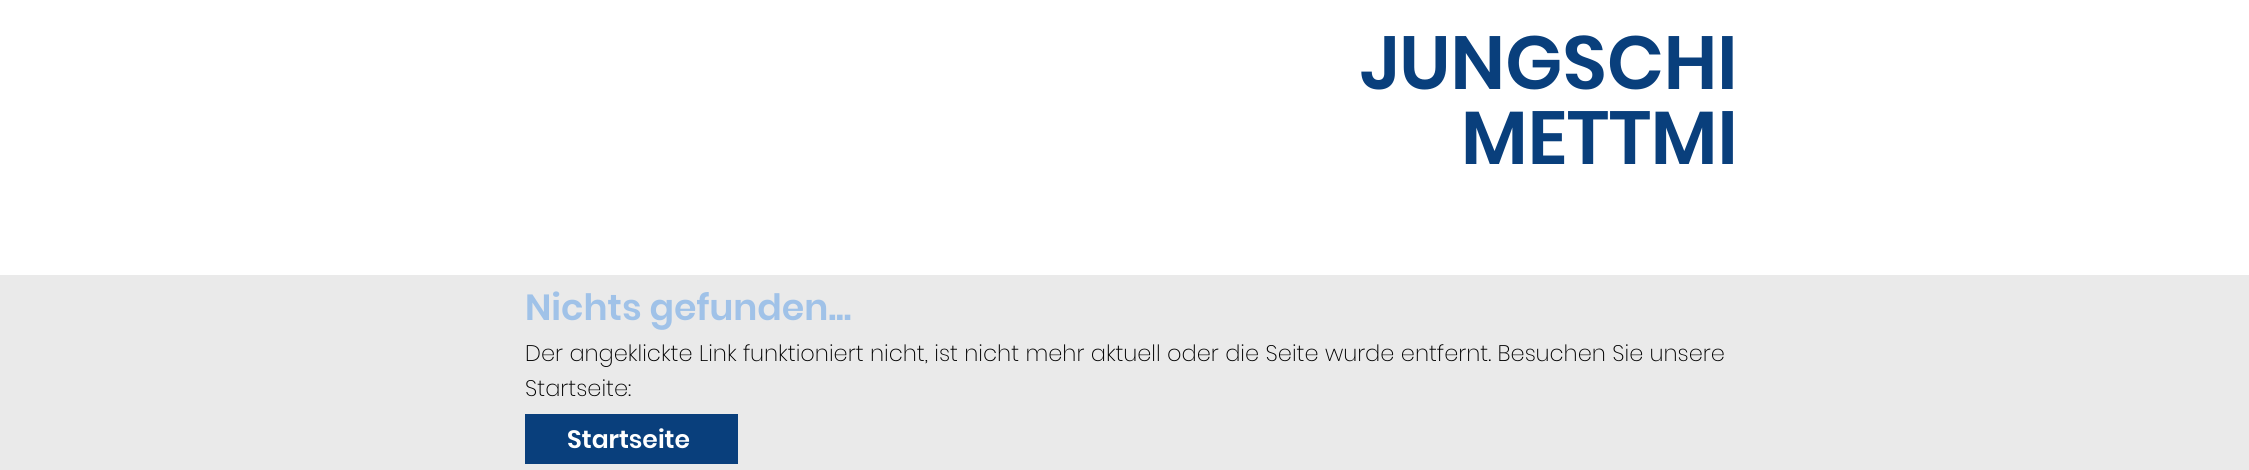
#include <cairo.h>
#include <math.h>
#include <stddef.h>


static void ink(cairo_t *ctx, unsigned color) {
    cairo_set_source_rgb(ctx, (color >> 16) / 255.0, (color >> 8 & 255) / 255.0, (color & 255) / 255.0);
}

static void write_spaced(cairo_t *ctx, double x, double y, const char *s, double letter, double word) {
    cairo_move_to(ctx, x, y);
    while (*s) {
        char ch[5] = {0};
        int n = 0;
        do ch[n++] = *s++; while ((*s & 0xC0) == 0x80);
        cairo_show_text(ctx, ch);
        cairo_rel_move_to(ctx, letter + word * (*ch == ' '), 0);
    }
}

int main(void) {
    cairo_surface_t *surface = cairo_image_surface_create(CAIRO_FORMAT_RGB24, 2249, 470);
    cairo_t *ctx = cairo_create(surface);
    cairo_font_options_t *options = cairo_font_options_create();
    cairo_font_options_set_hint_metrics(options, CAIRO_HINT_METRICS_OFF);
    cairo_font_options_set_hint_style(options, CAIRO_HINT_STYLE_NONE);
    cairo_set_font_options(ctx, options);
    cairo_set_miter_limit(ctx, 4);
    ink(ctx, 0xFFFFFF);
    cairo_paint(ctx);
    cairo_select_font_face(ctx, "Poppins SemiBold", CAIRO_FONT_SLANT_NORMAL, CAIRO_FONT_WEIGHT_NORMAL);
    cairo_set_font_size(ctx, 75);
    ink(ctx, 0x093F7C);
    cairo_move_to(ctx, 1360, 89);
    cairo_show_text(ctx, "JUNGSCHI");
    cairo_move_to(ctx, 1461, 164);
    cairo_show_text(ctx, "METTMI");
    ink(ctx, 0xEAEAEA);
    cairo_rectangle(ctx, 0, 275, 2249, 195);
    cairo_fill(ctx);
    cairo_set_font_size(ctx, 36.25);
    ink(ctx, 0xA0C2E8);
    cairo_move_to(ctx, 525, 320);
    cairo_show_text(ctx, "Nichts gefunden...");
    cairo_select_font_face(ctx, "Poppins ExtraLight", CAIRO_FONT_SLANT_NORMAL, CAIRO_FONT_WEIGHT_NORMAL);
    cairo_set_font_size(ctx, 22.5);
    ink(ctx, 0x000000);
    write_spaced(ctx, 525, 361, "Der angeklickte Link funktioniert nicht, ist nicht mehr aktuell oder die Seite wurde entfernt. Besuchen Sie unsere", 0, 0.25);
    cairo_move_to(ctx, 525, 396);
    cairo_show_text(ctx, "Startseite:");
    ink(ctx, 0x093F7C);
    cairo_rectangle(ctx, 525, 414, 213, 50);
    cairo_fill(ctx);
    cairo_select_font_face(ctx, "Poppins SemiBold", CAIRO_FONT_SLANT_NORMAL, CAIRO_FONT_WEIGHT_NORMAL);
    cairo_set_font_size(ctx, 25);
    ink(ctx, 0xFFFFFF);
    cairo_move_to(ctx, 567, 448);
    cairo_show_text(ctx, "Startseite");
    cairo_surface_write_to_png(surface, "image.png");
    cairo_font_options_destroy(options);
    cairo_destroy(ctx);
    cairo_surface_destroy(surface);
    return 0;
}
